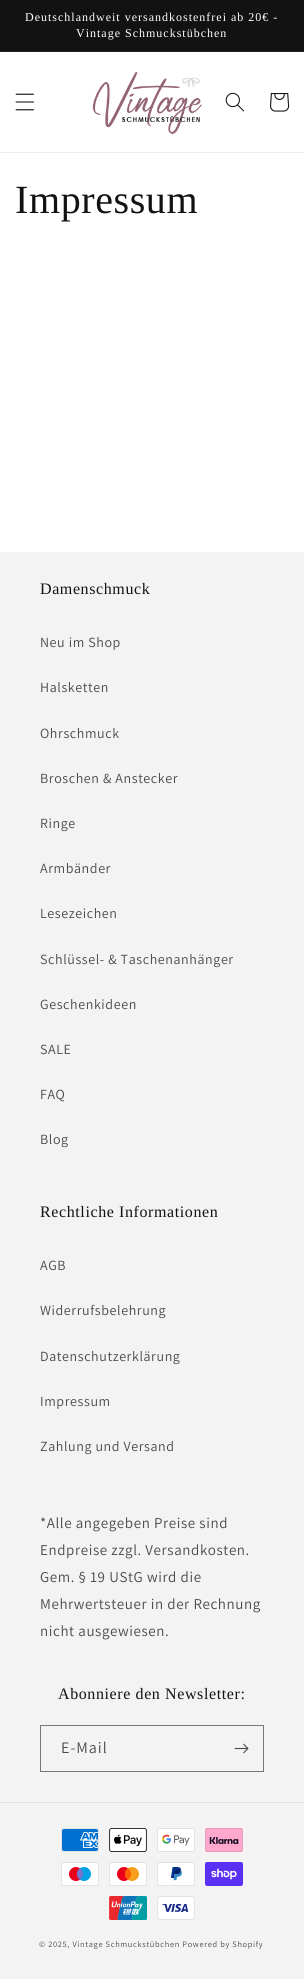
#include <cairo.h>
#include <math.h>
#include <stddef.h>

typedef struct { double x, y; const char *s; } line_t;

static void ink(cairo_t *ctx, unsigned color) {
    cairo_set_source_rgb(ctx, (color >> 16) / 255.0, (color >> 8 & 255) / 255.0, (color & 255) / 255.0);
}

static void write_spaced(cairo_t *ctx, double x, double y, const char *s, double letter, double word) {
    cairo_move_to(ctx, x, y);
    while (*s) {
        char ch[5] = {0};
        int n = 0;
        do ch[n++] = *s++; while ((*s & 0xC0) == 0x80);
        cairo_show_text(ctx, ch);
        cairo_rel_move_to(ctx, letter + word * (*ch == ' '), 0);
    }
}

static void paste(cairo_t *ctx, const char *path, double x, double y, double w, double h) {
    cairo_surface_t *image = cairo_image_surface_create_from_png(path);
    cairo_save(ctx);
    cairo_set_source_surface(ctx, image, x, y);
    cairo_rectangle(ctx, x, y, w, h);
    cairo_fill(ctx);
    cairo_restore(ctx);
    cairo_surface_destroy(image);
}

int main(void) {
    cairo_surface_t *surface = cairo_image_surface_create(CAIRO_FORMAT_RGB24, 304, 1979);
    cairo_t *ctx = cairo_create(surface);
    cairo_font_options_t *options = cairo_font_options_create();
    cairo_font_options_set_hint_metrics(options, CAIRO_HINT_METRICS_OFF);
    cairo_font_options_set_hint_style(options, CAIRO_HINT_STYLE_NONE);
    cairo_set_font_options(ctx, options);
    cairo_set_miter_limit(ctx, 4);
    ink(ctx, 0xFFFFFF);
    cairo_paint(ctx);
    ink(ctx, 0x121212);
    cairo_rectangle(ctx, 0, 0, 304, 51);
    cairo_fill(ctx);
    ink(ctx, 0x252525);
    cairo_rectangle(ctx, 0, 51, 304, 1);
    cairo_fill(ctx);
    cairo_select_font_face(ctx, "Liberation Serif", CAIRO_FONT_SLANT_NORMAL, CAIRO_FONT_WEIGHT_NORMAL);
    cairo_set_font_size(ctx, 12);
    ink(ctx, 0xFFFFFF);
    write_spaced(ctx, 25, 21, "Deutschlandweit versandkostenfrei ab 20€ -", 1, 0);
    write_spaced(ctx, 76, 37, "Vintage Schmuckstübchen", 1, 0);
    ink(ctx, 0xECECEC);
    cairo_rectangle(ctx, 0, 152, 304, 1);
    cairo_fill(ctx);
    paste(ctx, "media/1.png", 15, 93, 20, 18);
    paste(ctx, "media/2.png", 92, 72, 110, 63);
    paste(ctx, "media/3.png", 225, 92, 19, 20);
    paste(ctx, "media/4.png", 270, 93, 20, 19);
    cairo_set_font_size(ctx, 40);
    ink(ctx, 0x121212);
    write_spaced(ctx, 15, 213, "Impressum", 0.6, 0);
    ink(ctx, 0xF3F3F3);
    cairo_rectangle(ctx, 0, 552, 304, 1427);
    cairo_fill(ctx);
    cairo_set_font_size(ctx, 16);
    ink(ctx, 0x121212);
    write_spaced(ctx, 40, 594, "Damenschmuck", 0.6, 0);
    cairo_select_font_face(ctx, "Assistant", CAIRO_FONT_SLANT_NORMAL, CAIRO_FONT_WEIGHT_NORMAL);
    cairo_set_font_size(ctx, 14);
    ink(ctx, 0x4A4A4A);
    {
        static const line_t items[] = {
            {40, 647, "Neu im Shop"},
            {40, 692, "Halsketten"},
            {40, 738, "Ohrschmuck"},
            {40, 783, "Broschen & Anstecker"},
            {40, 828, "Ringe"},
            {40, 873, "Armbänder"},
            {40, 918, "Lesezeichen"},
            {40, 964, "Schlüssel- & Taschenanhänger"},
            {40, 1009, "Geschenkideen"},
            {40, 1054, "SALE"},
            {40, 1099, "FAQ"},
            {40, 1144, "Blog"},
        };
        for (size_t i = 0; i < sizeof items / sizeof *items; i++) {
            write_spaced(ctx, items[i].x, items[i].y, items[i].s, 0.6, 0);
        }
    }
    cairo_select_font_face(ctx, "Liberation Serif", CAIRO_FONT_SLANT_NORMAL, CAIRO_FONT_WEIGHT_NORMAL);
    cairo_set_font_size(ctx, 16);
    ink(ctx, 0x121212);
    write_spaced(ctx, 40, 1217, "Rechtliche Informationen", 0.6, 0);
    cairo_select_font_face(ctx, "Assistant", CAIRO_FONT_SLANT_NORMAL, CAIRO_FONT_WEIGHT_NORMAL);
    cairo_set_font_size(ctx, 14);
    ink(ctx, 0x4A4A4A);
    {
        static const line_t items[] = {
            {40, 1270, "AGB"},
            {40, 1315, "Widerrufsbelehrung"},
            {40, 1361, "Datenschutzerklärung"},
            {40, 1406, "Impressum"},
            {40, 1451, "Zahlung und Versand"},
        };
        for (size_t i = 0; i < sizeof items / sizeof *items; i++) {
            write_spaced(ctx, items[i].x, items[i].y, items[i].s, 0.6, 0);
        }
    }
    cairo_set_font_size(ctx, 15);
    {
        static const line_t items[] = {
            {40, 1528, "*Alle angegeben Preise sind"},
            {40, 1555, "Endpreise zzgl. Versandkosten."},
            {40, 1582, "Gem. § 19 UStG wird die"},
            {40, 1609, "Mehrwertsteuer in der Rechnung"},
            {40, 1636, "nicht ausgewiesen."},
        };
        for (size_t i = 0; i < sizeof items / sizeof *items; i++) {
            write_spaced(ctx, items[i].x, items[i].y, items[i].s, 0.6, 0);
        }
    }
    cairo_select_font_face(ctx, "Liberation Serif", CAIRO_FONT_SLANT_NORMAL, CAIRO_FONT_WEIGHT_NORMAL);
    cairo_set_font_size(ctx, 16);
    ink(ctx, 0x121212);
    write_spaced(ctx, 58, 1699, "Abonniere den Newsletter:", 0.6, 0);
    cairo_rectangle(ctx, 40.5, 1725.5, 223, 46);
    ink(ctx, 0x777777);
    cairo_set_line_width(ctx, 1);
    cairo_stroke(ctx);
    cairo_select_font_face(ctx, "Assistant", CAIRO_FONT_SLANT_NORMAL, CAIRO_FONT_WEIGHT_NORMAL);
    ink(ctx, 0x4A4A4A);
    write_spaced(ctx, 61, 1753, "E-Mail", 1, 0);
    paste(ctx, "media/5.png", 234, 1743, 15, 11);
    ink(ctx, 0xE1E1E1);
    cairo_rectangle(ctx, 0, 1802, 304, 1);
    cairo_fill(ctx);
    paste(ctx, "media/6.png", 61, 1828, 38, 24);
    paste(ctx, "media/7.png", 109, 1828, 38, 24);
    paste(ctx, "media/8.png", 157, 1828, 38, 24);
    paste(ctx, "media/9.png", 205, 1828, 38, 24);
    paste(ctx, "media/10.png", 61, 1862, 38, 24);
    paste(ctx, "media/11.png", 109, 1862, 38, 24);
    paste(ctx, "media/12.png", 157, 1862, 38, 24);
    paste(ctx, "media/13.png", 205, 1862, 38, 24);
    paste(ctx, "media/14.png", 109, 1896, 38, 24);
    paste(ctx, "media/15.png", 157, 1896, 38, 24);
    cairo_set_font_size(ctx, 8.3);
    ink(ctx, 0x4A4A4A);
    write_spaced(ctx, 39, 1947, "© 2025, Vintage Schmuckstübchen Powered by Shopify", 0.7, 0);
    cairo_surface_write_to_png(surface, "image.png");
    cairo_font_options_destroy(options);
    cairo_destroy(ctx);
    cairo_surface_destroy(surface);
    return 0;
}
